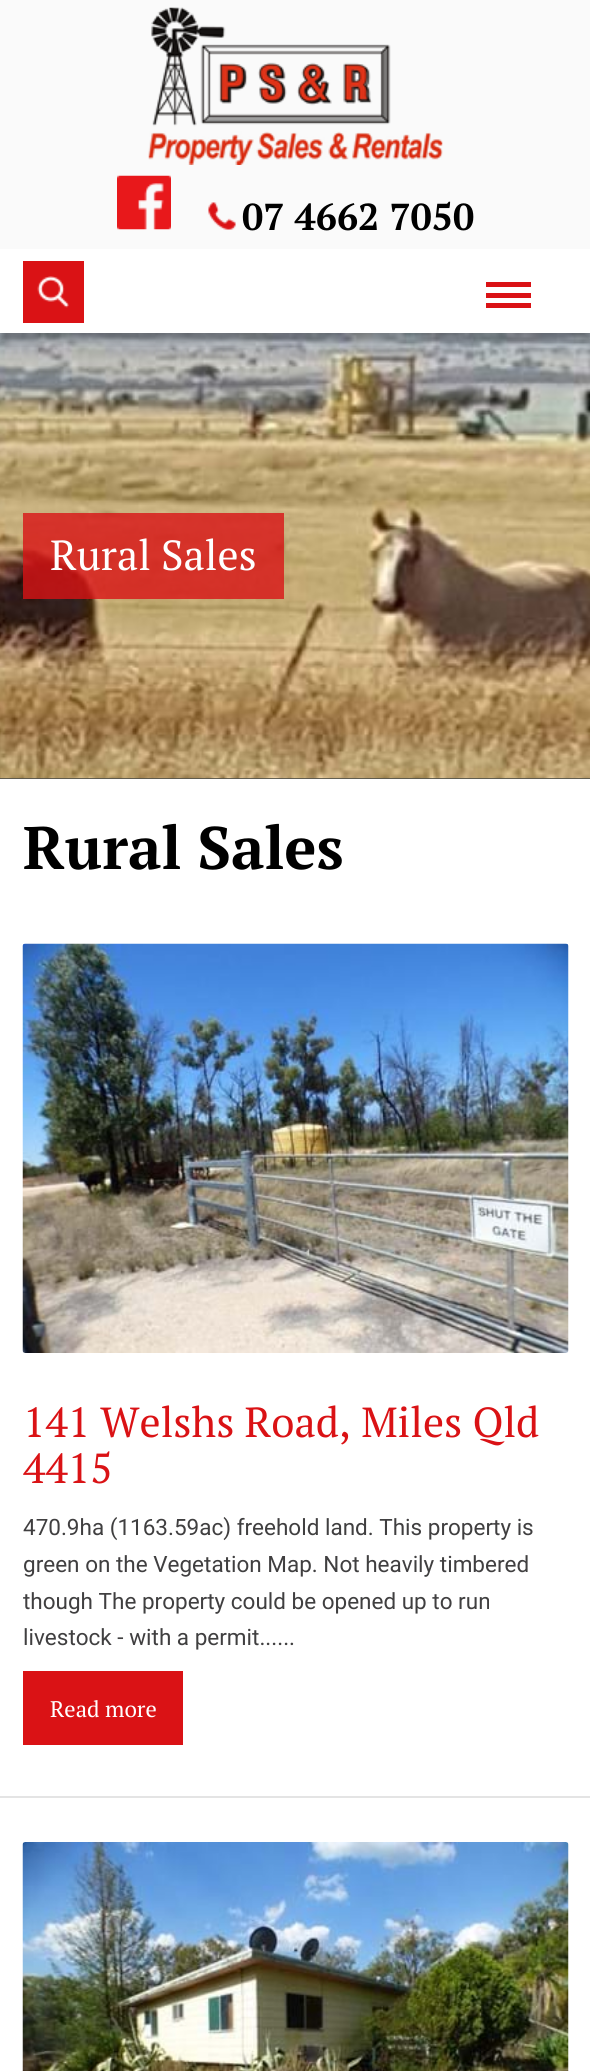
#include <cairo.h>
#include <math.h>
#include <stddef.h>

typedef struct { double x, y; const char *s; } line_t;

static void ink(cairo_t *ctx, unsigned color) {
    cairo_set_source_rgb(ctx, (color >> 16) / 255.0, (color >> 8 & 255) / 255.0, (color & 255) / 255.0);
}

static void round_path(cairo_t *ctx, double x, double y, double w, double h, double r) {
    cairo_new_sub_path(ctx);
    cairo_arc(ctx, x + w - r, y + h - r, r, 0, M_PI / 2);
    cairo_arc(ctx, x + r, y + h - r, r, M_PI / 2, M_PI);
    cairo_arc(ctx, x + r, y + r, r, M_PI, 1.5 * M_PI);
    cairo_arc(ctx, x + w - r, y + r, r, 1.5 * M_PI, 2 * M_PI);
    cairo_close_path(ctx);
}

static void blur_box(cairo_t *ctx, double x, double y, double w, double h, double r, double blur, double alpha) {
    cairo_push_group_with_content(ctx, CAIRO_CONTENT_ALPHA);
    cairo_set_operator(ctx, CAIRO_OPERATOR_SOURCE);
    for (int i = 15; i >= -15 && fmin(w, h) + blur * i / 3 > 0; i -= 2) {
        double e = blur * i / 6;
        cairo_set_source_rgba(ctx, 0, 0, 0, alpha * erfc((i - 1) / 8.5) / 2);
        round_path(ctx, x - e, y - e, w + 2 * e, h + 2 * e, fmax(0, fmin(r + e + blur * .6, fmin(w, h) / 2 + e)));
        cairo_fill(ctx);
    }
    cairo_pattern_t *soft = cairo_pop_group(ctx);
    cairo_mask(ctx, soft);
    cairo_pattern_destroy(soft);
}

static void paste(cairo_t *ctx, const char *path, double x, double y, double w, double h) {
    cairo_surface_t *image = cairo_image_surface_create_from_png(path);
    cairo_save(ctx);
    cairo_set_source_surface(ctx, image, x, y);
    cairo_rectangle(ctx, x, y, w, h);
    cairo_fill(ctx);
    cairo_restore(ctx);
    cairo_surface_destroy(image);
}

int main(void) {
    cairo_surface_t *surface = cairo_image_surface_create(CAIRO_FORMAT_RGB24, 590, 2071);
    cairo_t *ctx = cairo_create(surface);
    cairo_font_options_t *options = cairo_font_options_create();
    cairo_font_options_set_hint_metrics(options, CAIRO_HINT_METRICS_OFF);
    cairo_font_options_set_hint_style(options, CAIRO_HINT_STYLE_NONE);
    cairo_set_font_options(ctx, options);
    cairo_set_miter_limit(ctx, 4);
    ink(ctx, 0xFFFFFF);
    cairo_paint(ctx);
    ink(ctx, 0xFAFAFA);
    cairo_rectangle(ctx, 0, 0, 590, 249);
    cairo_fill(ctx);
    paste(ctx, "media/1.png", 148, 7, 295, 158);
    paste(ctx, "media/2.png", 117, 175, 54, 55);
    paste(ctx, "media/3.png", 208, 202, 28, 28);
    cairo_select_font_face(ctx, "PT Serif", CAIRO_FONT_SLANT_NORMAL, CAIRO_FONT_WEIGHT_BOLD);
    cairo_set_font_size(ctx, 37.5);
    ink(ctx, 0x000000);
    cairo_move_to(ctx, 242, 230);
    cairo_show_text(ctx, "07 4662 7050");
    ink(ctx, 0x55544A);
    cairo_rectangle(ctx, 0, 778, 590, 1);
    cairo_fill(ctx);
    paste(ctx, "media/5.png", 0, 333, 590, 446);
    cairo_save(ctx);
    cairo_rectangle(ctx, 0, 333, 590, 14);
    cairo_clip(ctx);
    ink(ctx, 0x000000);
    blur_box(ctx, 0, 257, 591, 84, 0, 4, 0.3);
    cairo_restore(ctx);
    ink(ctx, 0xDA1215);
    cairo_rectangle(ctx, 23, 261, 61, 62);
    cairo_fill(ctx);
    paste(ctx, "media/4.png", 37, 276, 32, 32);
    cairo_rectangle(ctx, 486, 282, 45, 5);
    cairo_fill(ctx);
    cairo_rectangle(ctx, 486, 293, 45, 5);
    cairo_fill(ctx);
    cairo_rectangle(ctx, 486, 303, 45, 5);
    cairo_fill(ctx);
    cairo_set_source_rgba(ctx, 0.855, 0.071, 0.082, 0.79);
    cairo_rectangle(ctx, 23, 513, 261, 86);
    cairo_fill(ctx);
    cairo_select_font_face(ctx, "PT Serif", CAIRO_FONT_SLANT_NORMAL, CAIRO_FONT_WEIGHT_NORMAL);
    cairo_set_font_size(ctx, 42);
    ink(ctx, 0xFFFFFF);
    cairo_move_to(ctx, 50, 570);
    cairo_show_text(ctx, "Rural Sales");
    cairo_select_font_face(ctx, "PT Serif", CAIRO_FONT_SLANT_NORMAL, CAIRO_FONT_WEIGHT_BOLD);
    cairo_set_font_size(ctx, 60);
    ink(ctx, 0x000000);
    cairo_move_to(ctx, 23, 869);
    cairo_show_text(ctx, "Rural Sales");
    ink(ctx, 0xE4E4E4);
    cairo_rectangle(ctx, 0, 1796, 590, 2);
    cairo_fill(ctx);
    paste(ctx, "media/6.png", 22, 943, 547, 410);
    cairo_select_font_face(ctx, "PT Serif", CAIRO_FONT_SLANT_NORMAL, CAIRO_FONT_WEIGHT_NORMAL);
    cairo_set_font_size(ctx, 42);
    ink(ctx, 0xDA1215);
    cairo_move_to(ctx, 23, 1437);
    cairo_show_text(ctx, "141 Welshs Road, Miles Qld");
    cairo_move_to(ctx, 23, 1483);
    cairo_show_text(ctx, "4415");
    cairo_select_font_face(ctx, "Roboto", CAIRO_FONT_SLANT_NORMAL, CAIRO_FONT_WEIGHT_NORMAL);
    cairo_set_font_size(ctx, 22.5);
    ink(ctx, 0x403F40);
    {
        static const line_t items[] = {
            {23, 1535, "470.9ha (1163.59ac) freehold land. This property is"},
            {23, 1572, "green on the Vegetation Map. Not heavily timbered"},
            {23, 1609, "though The property could be opened up to run"},
            {23, 1645, "livestock - with a permit......"},
        };
        for (size_t i = 0; i < sizeof items / sizeof *items; i++) {
            cairo_move_to(ctx, items[i].x, items[i].y);
            cairo_show_text(ctx, items[i].s);
        }
    }
    ink(ctx, 0xDA1215);
    cairo_rectangle(ctx, 23, 1671, 160, 74);
    cairo_fill(ctx);
    cairo_select_font_face(ctx, "PT Serif", CAIRO_FONT_SLANT_NORMAL, CAIRO_FONT_WEIGHT_NORMAL);
    ink(ctx, 0xFFFFFF);
    cairo_move_to(ctx, 50, 1717);
    cairo_show_text(ctx, "Read more");
    paste(ctx, "media/7.png", 22, 1842, 547, 229);
    cairo_surface_write_to_png(surface, "image.png");
    cairo_font_options_destroy(options);
    cairo_destroy(ctx);
    cairo_surface_destroy(surface);
    return 0;
}
